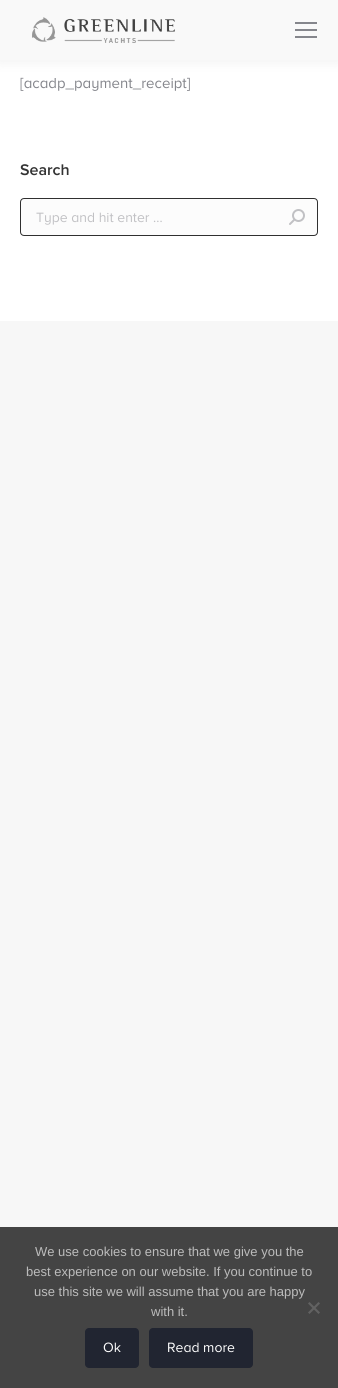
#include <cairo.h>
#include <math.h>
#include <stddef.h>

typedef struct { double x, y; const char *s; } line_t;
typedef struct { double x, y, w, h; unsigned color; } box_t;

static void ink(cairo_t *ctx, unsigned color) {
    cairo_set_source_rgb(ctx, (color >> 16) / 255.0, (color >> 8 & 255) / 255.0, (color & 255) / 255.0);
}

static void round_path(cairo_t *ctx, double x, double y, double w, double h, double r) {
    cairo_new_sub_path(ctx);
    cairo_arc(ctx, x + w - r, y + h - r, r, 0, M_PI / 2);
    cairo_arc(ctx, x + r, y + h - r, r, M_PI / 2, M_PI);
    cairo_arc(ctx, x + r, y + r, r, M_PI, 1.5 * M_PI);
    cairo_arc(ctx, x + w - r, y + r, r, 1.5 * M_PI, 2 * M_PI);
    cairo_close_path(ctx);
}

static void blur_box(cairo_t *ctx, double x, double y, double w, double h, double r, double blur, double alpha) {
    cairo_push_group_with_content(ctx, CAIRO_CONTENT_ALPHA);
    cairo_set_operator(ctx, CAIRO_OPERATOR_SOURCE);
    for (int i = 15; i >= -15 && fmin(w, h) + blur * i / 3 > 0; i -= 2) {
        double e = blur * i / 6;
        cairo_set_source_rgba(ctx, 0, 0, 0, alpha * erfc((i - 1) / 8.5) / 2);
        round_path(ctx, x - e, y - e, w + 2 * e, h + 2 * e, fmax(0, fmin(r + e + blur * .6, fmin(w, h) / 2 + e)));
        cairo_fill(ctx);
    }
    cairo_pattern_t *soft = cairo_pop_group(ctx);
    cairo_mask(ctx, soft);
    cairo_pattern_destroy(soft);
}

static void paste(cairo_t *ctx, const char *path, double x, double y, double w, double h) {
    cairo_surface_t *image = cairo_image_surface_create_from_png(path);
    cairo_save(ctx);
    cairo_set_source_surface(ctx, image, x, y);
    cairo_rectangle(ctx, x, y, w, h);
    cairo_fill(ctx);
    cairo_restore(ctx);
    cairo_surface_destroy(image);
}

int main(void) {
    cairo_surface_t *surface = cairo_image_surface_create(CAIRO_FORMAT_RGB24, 338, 1388);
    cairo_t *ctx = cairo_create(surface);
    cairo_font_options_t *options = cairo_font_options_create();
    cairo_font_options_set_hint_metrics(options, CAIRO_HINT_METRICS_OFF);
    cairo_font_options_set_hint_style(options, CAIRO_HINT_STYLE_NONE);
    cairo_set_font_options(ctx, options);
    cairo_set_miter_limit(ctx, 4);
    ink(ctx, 0xF7F7F7);
    cairo_paint(ctx);
    ink(ctx, 0xFFFFFF);
    cairo_rectangle(ctx, 0, 60, 338, 261);
    cairo_fill(ctx);
    ink(ctx, 0x000000);
    blur_box(ctx, -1, -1, 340, 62, 0, 7.5, 0.07);
    ink(ctx, 0xF9F9F9);
    cairo_rectangle(ctx, 0, 0, 338, 60);
    cairo_fill(ctx);
    paste(ctx, "media/1.png", 32, 17, 143, 26);
    {
        static const box_t items[] = {
            {295, 29, 22, 2, 0x85868C},
            {295, 22, 22, 2, 0x85868C},
            {295, 36, 22, 2, 0x85868C},
        };
        for (size_t i = 0; i < sizeof items / sizeof *items; i++) {
            ink(ctx, items[i].color);
            cairo_rectangle(ctx, items[i].x, items[i].y, items[i].w, items[i].h);
            cairo_fill(ctx);
        }
    }
    cairo_select_font_face(ctx, "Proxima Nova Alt", CAIRO_FONT_SLANT_NORMAL, CAIRO_FONT_WEIGHT_NORMAL);
    cairo_set_font_size(ctx, 15);
    cairo_move_to(ctx, 20, 88);
    cairo_show_text(ctx, "[acadp_payment_receipt]");
    cairo_select_font_face(ctx, "Proxima Nova SemiBold", CAIRO_FONT_SLANT_NORMAL, CAIRO_FONT_WEIGHT_NORMAL);
    cairo_set_font_size(ctx, 16);
    ink(ctx, 0x333333);
    cairo_move_to(ctx, 20, 175);
    cairo_show_text(ctx, "Search");
    ink(ctx, 0xFCFCFC);
    round_path(ctx, 20.5, 198.5, 297, 37, 3.5);
    cairo_fill_preserve(ctx);
    ink(ctx, 0x303030);
    cairo_set_line_width(ctx, 1);
    cairo_stroke(ctx);
    cairo_select_font_face(ctx, "Proxima Nova Alt", CAIRO_FONT_SLANT_NORMAL, CAIRO_FONT_WEIGHT_NORMAL);
    cairo_set_font_size(ctx, 14);
    ink(ctx, 0xC1C1C4);
    cairo_move_to(ctx, 36, 222);
    cairo_show_text(ctx, "Type and hit enter …");
    paste(ctx, "media/2.png", 289, 209, 16, 16);
    ink(ctx, 0x444444);
    cairo_rectangle(ctx, 0, 1227, 338, 161);
    cairo_fill(ctx);
    cairo_select_font_face(ctx, "Liberation Sans", CAIRO_FONT_SLANT_NORMAL, CAIRO_FONT_WEIGHT_NORMAL);
    cairo_set_font_size(ctx, 13);
    ink(ctx, 0xBCBCBC);
    {
        static const line_t items[] = {
            {35, 1256, "We use cookies to ensure that we give you the"},
            {26, 1276, "best experience on our website. If you continue to"},
            {34, 1296, "use this site we will assume that you are happy"},
            {151, 1316, "with it."},
        };
        for (size_t i = 0; i < sizeof items / sizeof *items; i++) {
            cairo_move_to(ctx, items[i].x, items[i].y);
            cairo_show_text(ctx, items[i].s);
        }
    }
    ink(ctx, 0x626262);
    cairo_new_path(ctx);
    cairo_move_to(ctx, 318.5, 1302);
    cairo_line_to(ctx, 320, 1303.5);
    cairo_line_to(ctx, 309.5, 1314);
    cairo_line_to(ctx, 308, 1312.5);
    cairo_close_path(ctx);
    cairo_fill(ctx);
    cairo_new_path(ctx);
    cairo_move_to(ctx, 308, 1303.5);
    cairo_line_to(ctx, 309.5, 1302);
    cairo_line_to(ctx, 320, 1312.5);
    cairo_line_to(ctx, 318.5, 1314);
    cairo_close_path(ctx);
    cairo_fill(ctx);
    ink(ctx, 0x212531);
    round_path(ctx, 85, 1328, 54, 40, 4);
    cairo_fill(ctx);
    cairo_select_font_face(ctx, "Proxima Nova Alt", CAIRO_FONT_SLANT_NORMAL, CAIRO_FONT_WEIGHT_NORMAL);
    cairo_set_font_size(ctx, 14);
    ink(ctx, 0xFFFFFF);
    cairo_move_to(ctx, 103, 1352);
    cairo_show_text(ctx, "Ok");
    ink(ctx, 0x212531);
    round_path(ctx, 149, 1328, 104, 40, 4);
    cairo_fill(ctx);
    ink(ctx, 0xFFFFFF);
    cairo_move_to(ctx, 167, 1352);
    cairo_show_text(ctx, "Read more");
    cairo_surface_write_to_png(surface, "image.png");
    cairo_font_options_destroy(options);
    cairo_destroy(ctx);
    cairo_surface_destroy(surface);
    return 0;
}
